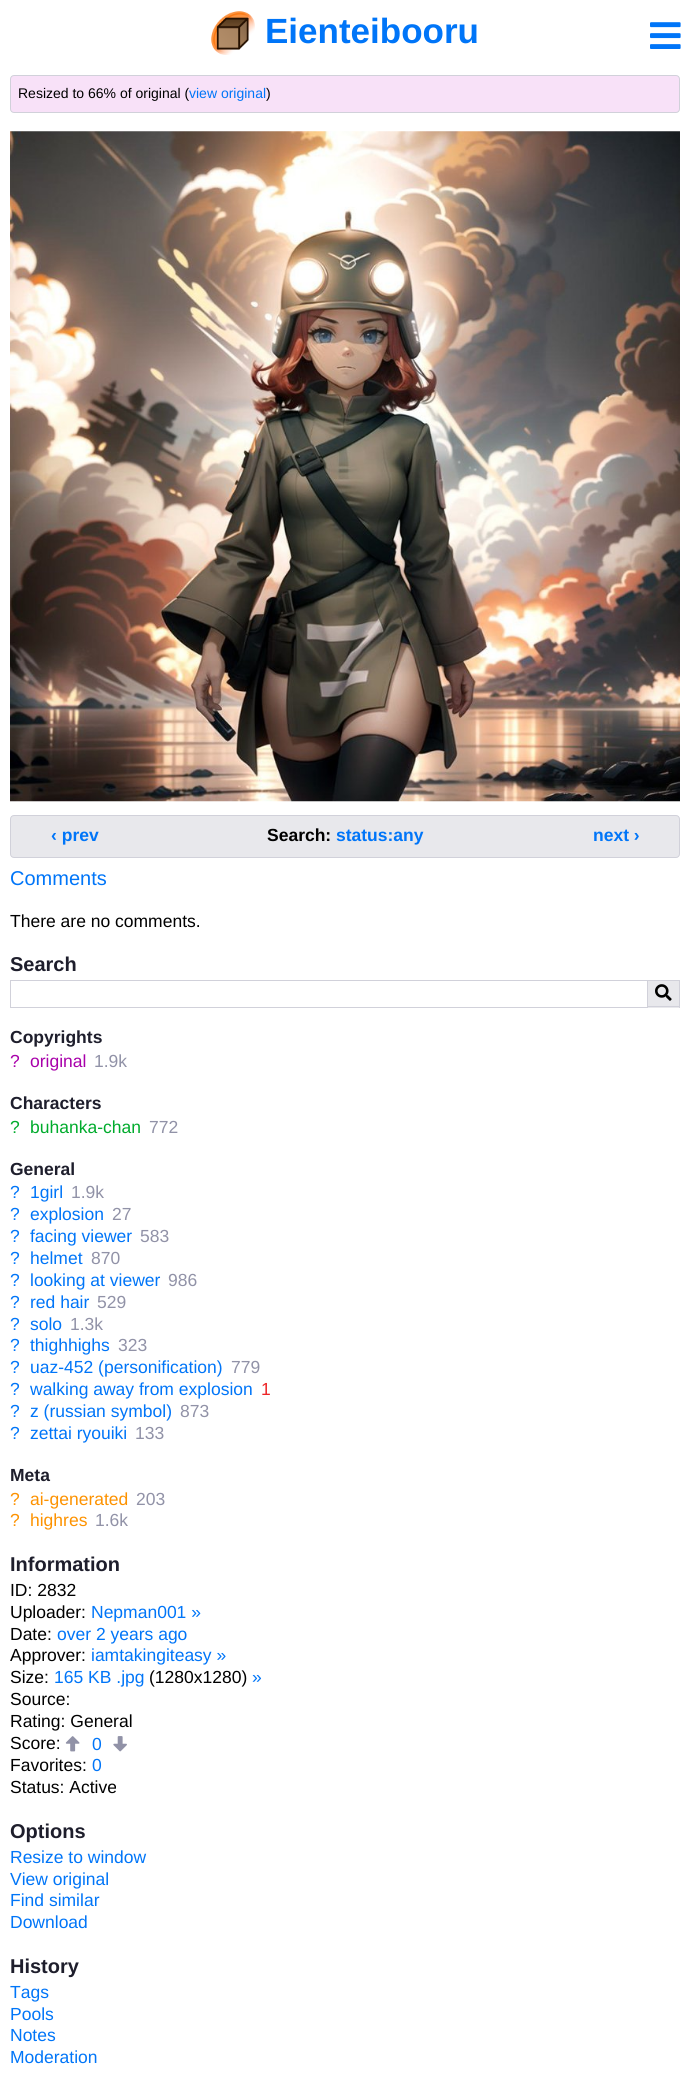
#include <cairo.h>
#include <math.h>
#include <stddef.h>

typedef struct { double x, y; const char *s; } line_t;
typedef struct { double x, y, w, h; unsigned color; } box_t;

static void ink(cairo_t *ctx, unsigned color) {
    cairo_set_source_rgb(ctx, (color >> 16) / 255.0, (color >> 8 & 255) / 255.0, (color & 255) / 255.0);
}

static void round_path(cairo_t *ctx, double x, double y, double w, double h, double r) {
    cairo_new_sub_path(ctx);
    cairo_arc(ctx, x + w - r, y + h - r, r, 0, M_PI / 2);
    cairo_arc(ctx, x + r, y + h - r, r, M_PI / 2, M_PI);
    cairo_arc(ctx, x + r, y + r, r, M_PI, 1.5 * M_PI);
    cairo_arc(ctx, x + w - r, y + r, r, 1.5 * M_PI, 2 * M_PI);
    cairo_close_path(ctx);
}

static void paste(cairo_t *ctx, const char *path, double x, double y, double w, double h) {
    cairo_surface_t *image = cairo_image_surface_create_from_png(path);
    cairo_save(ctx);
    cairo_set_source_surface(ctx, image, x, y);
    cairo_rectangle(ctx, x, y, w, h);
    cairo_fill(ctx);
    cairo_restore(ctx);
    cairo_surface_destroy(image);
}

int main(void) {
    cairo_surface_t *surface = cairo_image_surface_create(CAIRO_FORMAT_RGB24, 690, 2080);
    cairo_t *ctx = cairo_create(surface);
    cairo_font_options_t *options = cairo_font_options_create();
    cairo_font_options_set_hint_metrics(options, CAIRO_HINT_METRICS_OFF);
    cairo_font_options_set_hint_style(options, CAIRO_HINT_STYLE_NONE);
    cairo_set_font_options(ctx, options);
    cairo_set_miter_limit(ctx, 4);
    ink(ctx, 0xFFFFFF);
    cairo_paint(ctx);
    paste(ctx, "media/1.png", 211, 11, 44, 44);
    cairo_select_font_face(ctx, "Liberation Sans", CAIRO_FONT_SLANT_NORMAL, CAIRO_FONT_WEIGHT_BOLD);
    cairo_set_font_size(ctx, 35);
    ink(ctx, 0x0075F8);
    cairo_move_to(ctx, 265, 43);
    cairo_show_text(ctx, "Eienteibooru");
    paste(ctx, "media/2.png", 650, 22, 31, 27);
    ink(ctx, 0xF8E1F8);
    round_path(ctx, 10.5, 75.5, 669, 37, 3.5);
    cairo_fill_preserve(ctx);
    ink(ctx, 0xD1D1DA);
    cairo_set_line_width(ctx, 1);
    cairo_stroke(ctx);
    cairo_select_font_face(ctx, "Liberation Sans", CAIRO_FONT_SLANT_NORMAL, CAIRO_FONT_WEIGHT_NORMAL);
    cairo_set_font_size(ctx, 14);
    ink(ctx, 0x000000);
    cairo_move_to(ctx, 18, 98);
    cairo_show_text(ctx, "Resized to 66% of original (");
    ink(ctx, 0x0075F8);
    cairo_move_to(ctx, 189, 98);
    cairo_show_text(ctx, "view original");
    ink(ctx, 0x000000);
    cairo_move_to(ctx, 266, 98);
    cairo_show_text(ctx, ")");
    paste(ctx, "media/3.png", 10, 131, 670, 671);
    ink(ctx, 0xE8E8EC);
    round_path(ctx, 10.5, 815.5, 669, 42, 3.5);
    cairo_fill_preserve(ctx);
    ink(ctx, 0xD1D1DA);
    cairo_stroke(ctx);
    cairo_select_font_face(ctx, "Liberation Sans", CAIRO_FONT_SLANT_NORMAL, CAIRO_FONT_WEIGHT_BOLD);
    cairo_set_font_size(ctx, 17.5);
    ink(ctx, 0x0075F8);
    cairo_move_to(ctx, 51, 841);
    cairo_show_text(ctx, "‹ prev");
    ink(ctx, 0x000000);
    cairo_move_to(ctx, 267, 841);
    cairo_show_text(ctx, "Search:");
    ink(ctx, 0x0075F8);
    cairo_move_to(ctx, 336, 841);
    cairo_show_text(ctx, "status:any");
    cairo_move_to(ctx, 593, 841);
    cairo_show_text(ctx, "next ›");
    cairo_select_font_face(ctx, "Liberation Sans", CAIRO_FONT_SLANT_NORMAL, CAIRO_FONT_WEIGHT_NORMAL);
    cairo_set_font_size(ctx, 20);
    cairo_move_to(ctx, 10, 885);
    cairo_show_text(ctx, "Comments");
    cairo_set_font_size(ctx, 17.5);
    ink(ctx, 0x000000);
    cairo_move_to(ctx, 10, 927);
    cairo_show_text(ctx, "There are no comments.");
    cairo_select_font_face(ctx, "Liberation Sans", CAIRO_FONT_SLANT_NORMAL, CAIRO_FONT_WEIGHT_BOLD);
    cairo_set_font_size(ctx, 20);
    ink(ctx, 0x1E1E2C);
    cairo_move_to(ctx, 10, 971);
    cairo_show_text(ctx, "Search");
    cairo_rectangle(ctx, 10.5, 980.5, 637, 27);
    ink(ctx, 0xD1D1DA);
    cairo_stroke(ctx);
    {
        static const box_t items[] = {
            {648, 981, 31, 27, 0xE8E8EC},
            {648, 980, 32, 1, 0xD1D1DA},
            {679, 980, 1, 28, 0xD1D1DA},
            {648, 1006, 32, 1, 0xD1D1DA},
        };
        for (size_t i = 0; i < sizeof items / sizeof *items; i++) {
            ink(ctx, items[i].color);
            cairo_rectangle(ctx, items[i].x, items[i].y, items[i].w, items[i].h);
            cairo_fill(ctx);
        }
    }
    paste(ctx, "media/4.png", 655, 984, 17, 17);
    cairo_set_font_size(ctx, 17.5);
    ink(ctx, 0x1E1E2C);
    cairo_move_to(ctx, 10, 1043);
    cairo_show_text(ctx, "Copyrights");
    cairo_select_font_face(ctx, "Liberation Sans", CAIRO_FONT_SLANT_NORMAL, CAIRO_FONT_WEIGHT_NORMAL);
    ink(ctx, 0xA800AA);
    cairo_move_to(ctx, 10, 1067);
    cairo_show_text(ctx, "?");
    cairo_move_to(ctx, 30, 1067);
    cairo_show_text(ctx, "original");
    ink(ctx, 0x9192A7);
    cairo_move_to(ctx, 94, 1067);
    cairo_show_text(ctx, "1.9k");
    cairo_select_font_face(ctx, "Liberation Sans", CAIRO_FONT_SLANT_NORMAL, CAIRO_FONT_WEIGHT_BOLD);
    ink(ctx, 0x1E1E2C);
    cairo_move_to(ctx, 10, 1109);
    cairo_show_text(ctx, "Characters");
    cairo_select_font_face(ctx, "Liberation Sans", CAIRO_FONT_SLANT_NORMAL, CAIRO_FONT_WEIGHT_NORMAL);
    ink(ctx, 0x00AB2C);
    cairo_move_to(ctx, 10, 1133);
    cairo_show_text(ctx, "?");
    cairo_move_to(ctx, 30, 1133);
    cairo_show_text(ctx, "buhanka-chan");
    ink(ctx, 0x9192A7);
    cairo_move_to(ctx, 149, 1133);
    cairo_show_text(ctx, "772");
    cairo_select_font_face(ctx, "Liberation Sans", CAIRO_FONT_SLANT_NORMAL, CAIRO_FONT_WEIGHT_BOLD);
    ink(ctx, 0x1E1E2C);
    cairo_move_to(ctx, 10, 1175);
    cairo_show_text(ctx, "General");
    cairo_select_font_face(ctx, "Liberation Sans", CAIRO_FONT_SLANT_NORMAL, CAIRO_FONT_WEIGHT_NORMAL);
    ink(ctx, 0x0075F8);
    cairo_move_to(ctx, 10, 1198);
    cairo_show_text(ctx, "?");
    cairo_move_to(ctx, 30, 1198);
    cairo_show_text(ctx, "1girl");
    ink(ctx, 0x9192A7);
    cairo_move_to(ctx, 71, 1198);
    cairo_show_text(ctx, "1.9k");
    ink(ctx, 0x0075F8);
    cairo_move_to(ctx, 10, 1220);
    cairo_show_text(ctx, "?");
    cairo_move_to(ctx, 30, 1220);
    cairo_show_text(ctx, "explosion");
    ink(ctx, 0x9192A7);
    cairo_move_to(ctx, 112, 1220);
    cairo_show_text(ctx, "27");
    ink(ctx, 0x0075F8);
    cairo_move_to(ctx, 10, 1242);
    cairo_show_text(ctx, "?");
    cairo_move_to(ctx, 30, 1242);
    cairo_show_text(ctx, "facing viewer");
    ink(ctx, 0x9192A7);
    cairo_move_to(ctx, 140, 1242);
    cairo_show_text(ctx, "583");
    ink(ctx, 0x0075F8);
    cairo_move_to(ctx, 10, 1264);
    cairo_show_text(ctx, "?");
    cairo_move_to(ctx, 30, 1264);
    cairo_show_text(ctx, "helmet");
    ink(ctx, 0x9192A7);
    cairo_move_to(ctx, 91, 1264);
    cairo_show_text(ctx, "870");
    ink(ctx, 0x0075F8);
    cairo_move_to(ctx, 10, 1286);
    cairo_show_text(ctx, "?");
    cairo_move_to(ctx, 30, 1286);
    cairo_show_text(ctx, "looking at viewer");
    ink(ctx, 0x9192A7);
    cairo_move_to(ctx, 168, 1286);
    cairo_show_text(ctx, "986");
    ink(ctx, 0x0075F8);
    cairo_move_to(ctx, 10, 1308);
    cairo_show_text(ctx, "?");
    cairo_move_to(ctx, 30, 1308);
    cairo_show_text(ctx, "red hair");
    ink(ctx, 0x9192A7);
    cairo_move_to(ctx, 97, 1308);
    cairo_show_text(ctx, "529");
    ink(ctx, 0x0075F8);
    cairo_move_to(ctx, 10, 1330);
    cairo_show_text(ctx, "?");
    cairo_move_to(ctx, 30, 1330);
    cairo_show_text(ctx, "solo");
    ink(ctx, 0x9192A7);
    cairo_move_to(ctx, 70, 1330);
    cairo_show_text(ctx, "1.3k");
    ink(ctx, 0x0075F8);
    cairo_move_to(ctx, 10, 1351);
    cairo_show_text(ctx, "?");
    cairo_move_to(ctx, 30, 1351);
    cairo_show_text(ctx, "thighhighs");
    ink(ctx, 0x9192A7);
    cairo_move_to(ctx, 118, 1351);
    cairo_show_text(ctx, "323");
    ink(ctx, 0x0075F8);
    cairo_move_to(ctx, 10, 1373);
    cairo_show_text(ctx, "?");
    cairo_move_to(ctx, 30, 1373);
    cairo_show_text(ctx, "uaz-452 (personification)");
    ink(ctx, 0x9192A7);
    cairo_move_to(ctx, 231, 1373);
    cairo_show_text(ctx, "779");
    ink(ctx, 0x0075F8);
    cairo_move_to(ctx, 10, 1395);
    cairo_show_text(ctx, "?");
    cairo_move_to(ctx, 30, 1395);
    cairo_show_text(ctx, "walking away from explosion");
    ink(ctx, 0xED2426);
    cairo_move_to(ctx, 261, 1395);
    cairo_show_text(ctx, "1");
    ink(ctx, 0x0075F8);
    cairo_move_to(ctx, 10, 1417);
    cairo_show_text(ctx, "?");
    cairo_move_to(ctx, 30, 1417);
    cairo_show_text(ctx, "z (russian symbol)");
    ink(ctx, 0x9192A7);
    cairo_move_to(ctx, 180, 1417);
    cairo_show_text(ctx, "873");
    ink(ctx, 0x0075F8);
    cairo_move_to(ctx, 10, 1439);
    cairo_show_text(ctx, "?");
    cairo_move_to(ctx, 30, 1439);
    cairo_show_text(ctx, "zettai ryouiki");
    ink(ctx, 0x9192A7);
    cairo_move_to(ctx, 135, 1439);
    cairo_show_text(ctx, "133");
    cairo_select_font_face(ctx, "Liberation Sans", CAIRO_FONT_SLANT_NORMAL, CAIRO_FONT_WEIGHT_BOLD);
    ink(ctx, 0x1E1E2C);
    cairo_move_to(ctx, 10, 1481);
    cairo_show_text(ctx, "Meta");
    cairo_select_font_face(ctx, "Liberation Sans", CAIRO_FONT_SLANT_NORMAL, CAIRO_FONT_WEIGHT_NORMAL);
    ink(ctx, 0xFD9200);
    cairo_move_to(ctx, 10, 1505);
    cairo_show_text(ctx, "?");
    cairo_move_to(ctx, 30, 1505);
    cairo_show_text(ctx, "ai-generated");
    ink(ctx, 0x9192A7);
    cairo_move_to(ctx, 136, 1505);
    cairo_show_text(ctx, "203");
    ink(ctx, 0xFD9200);
    cairo_move_to(ctx, 10, 1526);
    cairo_show_text(ctx, "?");
    cairo_move_to(ctx, 30, 1526);
    cairo_show_text(ctx, "highres");
    ink(ctx, 0x9192A7);
    cairo_move_to(ctx, 95, 1526);
    cairo_show_text(ctx, "1.6k");
    cairo_select_font_face(ctx, "Liberation Sans", CAIRO_FONT_SLANT_NORMAL, CAIRO_FONT_WEIGHT_BOLD);
    cairo_set_font_size(ctx, 20);
    ink(ctx, 0x1E1E2C);
    cairo_move_to(ctx, 10, 1571);
    cairo_show_text(ctx, "Information");
    cairo_select_font_face(ctx, "Liberation Sans", CAIRO_FONT_SLANT_NORMAL, CAIRO_FONT_WEIGHT_NORMAL);
    cairo_set_font_size(ctx, 17.5);
    ink(ctx, 0x000000);
    cairo_move_to(ctx, 10, 1596);
    cairo_show_text(ctx, "ID: 2832");
    cairo_move_to(ctx, 10, 1618);
    cairo_show_text(ctx, "Uploader:");
    ink(ctx, 0x0075F8);
    cairo_move_to(ctx, 91, 1618);
    cairo_show_text(ctx, "Nepman001 »");
    ink(ctx, 0x000000);
    cairo_move_to(ctx, 10, 1640);
    cairo_show_text(ctx, "Date:");
    ink(ctx, 0x0075F8);
    cairo_move_to(ctx, 57, 1640);
    cairo_show_text(ctx, "over 2 years ago");
    ink(ctx, 0x000000);
    cairo_move_to(ctx, 10, 1661);
    cairo_show_text(ctx, "Approver:");
    ink(ctx, 0x0075F8);
    cairo_move_to(ctx, 91, 1661);
    cairo_show_text(ctx, "iamtakingiteasy »");
    ink(ctx, 0x000000);
    cairo_move_to(ctx, 10, 1683);
    cairo_show_text(ctx, "Size:");
    ink(ctx, 0x0075F8);
    cairo_move_to(ctx, 54, 1683);
    cairo_show_text(ctx, "165 KB .jpg");
    ink(ctx, 0x000000);
    cairo_move_to(ctx, 149, 1683);
    cairo_show_text(ctx, "(1280x1280)");
    ink(ctx, 0x0075F8);
    cairo_move_to(ctx, 252, 1683);
    cairo_show_text(ctx, "»");
    ink(ctx, 0x000000);
    {
        static const line_t items[] = {
            {10, 1705, "Source:"},
            {10, 1727, "Rating: General"},
            {10, 1749, "Score:"},
        };
        for (size_t i = 0; i < sizeof items / sizeof *items; i++) {
            cairo_move_to(ctx, items[i].x, items[i].y);
            cairo_show_text(ctx, items[i].s);
        }
    }
    paste(ctx, "media/5.png", 65, 1736, 15, 16);
    ink(ctx, 0x0075F8);
    cairo_move_to(ctx, 92, 1750);
    cairo_show_text(ctx, "0");
    paste(ctx, "media/6.png", 113, 1736, 14, 16);
    ink(ctx, 0x000000);
    cairo_move_to(ctx, 10, 1771);
    cairo_show_text(ctx, "Favorites:");
    ink(ctx, 0x0075F8);
    cairo_move_to(ctx, 92, 1771);
    cairo_show_text(ctx, "0");
    ink(ctx, 0x000000);
    cairo_move_to(ctx, 10, 1793);
    cairo_show_text(ctx, "Status: Active");
    cairo_select_font_face(ctx, "Liberation Sans", CAIRO_FONT_SLANT_NORMAL, CAIRO_FONT_WEIGHT_BOLD);
    cairo_set_font_size(ctx, 20);
    ink(ctx, 0x1E1E2C);
    cairo_move_to(ctx, 10, 1838);
    cairo_show_text(ctx, "Options");
    cairo_select_font_face(ctx, "Liberation Sans", CAIRO_FONT_SLANT_NORMAL, CAIRO_FONT_WEIGHT_NORMAL);
    cairo_set_font_size(ctx, 17.5);
    ink(ctx, 0x0075F8);
    {
        static const line_t items[] = {
            {10, 1863, "Resize to window"},
            {10, 1885, "View original"},
            {10, 1906, "Find similar"},
            {10, 1928, "Download"},
        };
        for (size_t i = 0; i < sizeof items / sizeof *items; i++) {
            cairo_move_to(ctx, items[i].x, items[i].y);
            cairo_show_text(ctx, items[i].s);
        }
    }
    cairo_select_font_face(ctx, "Liberation Sans", CAIRO_FONT_SLANT_NORMAL, CAIRO_FONT_WEIGHT_BOLD);
    cairo_set_font_size(ctx, 20);
    ink(ctx, 0x1E1E2C);
    cairo_move_to(ctx, 10, 1973);
    cairo_show_text(ctx, "History");
    cairo_select_font_face(ctx, "Liberation Sans", CAIRO_FONT_SLANT_NORMAL, CAIRO_FONT_WEIGHT_NORMAL);
    cairo_set_font_size(ctx, 17.5);
    ink(ctx, 0x0075F8);
    {
        static const line_t items[] = {
            {10, 1998, "Tags"},
            {10, 2020, "Pools"},
            {10, 2041, "Notes"},
            {10, 2063, "Moderation"},
        };
        for (size_t i = 0; i < sizeof items / sizeof *items; i++) {
            cairo_move_to(ctx, items[i].x, items[i].y);
            cairo_show_text(ctx, items[i].s);
        }
    }
    cairo_surface_write_to_png(surface, "image.png");
    cairo_font_options_destroy(options);
    cairo_destroy(ctx);
    cairo_surface_destroy(surface);
    return 0;
}
